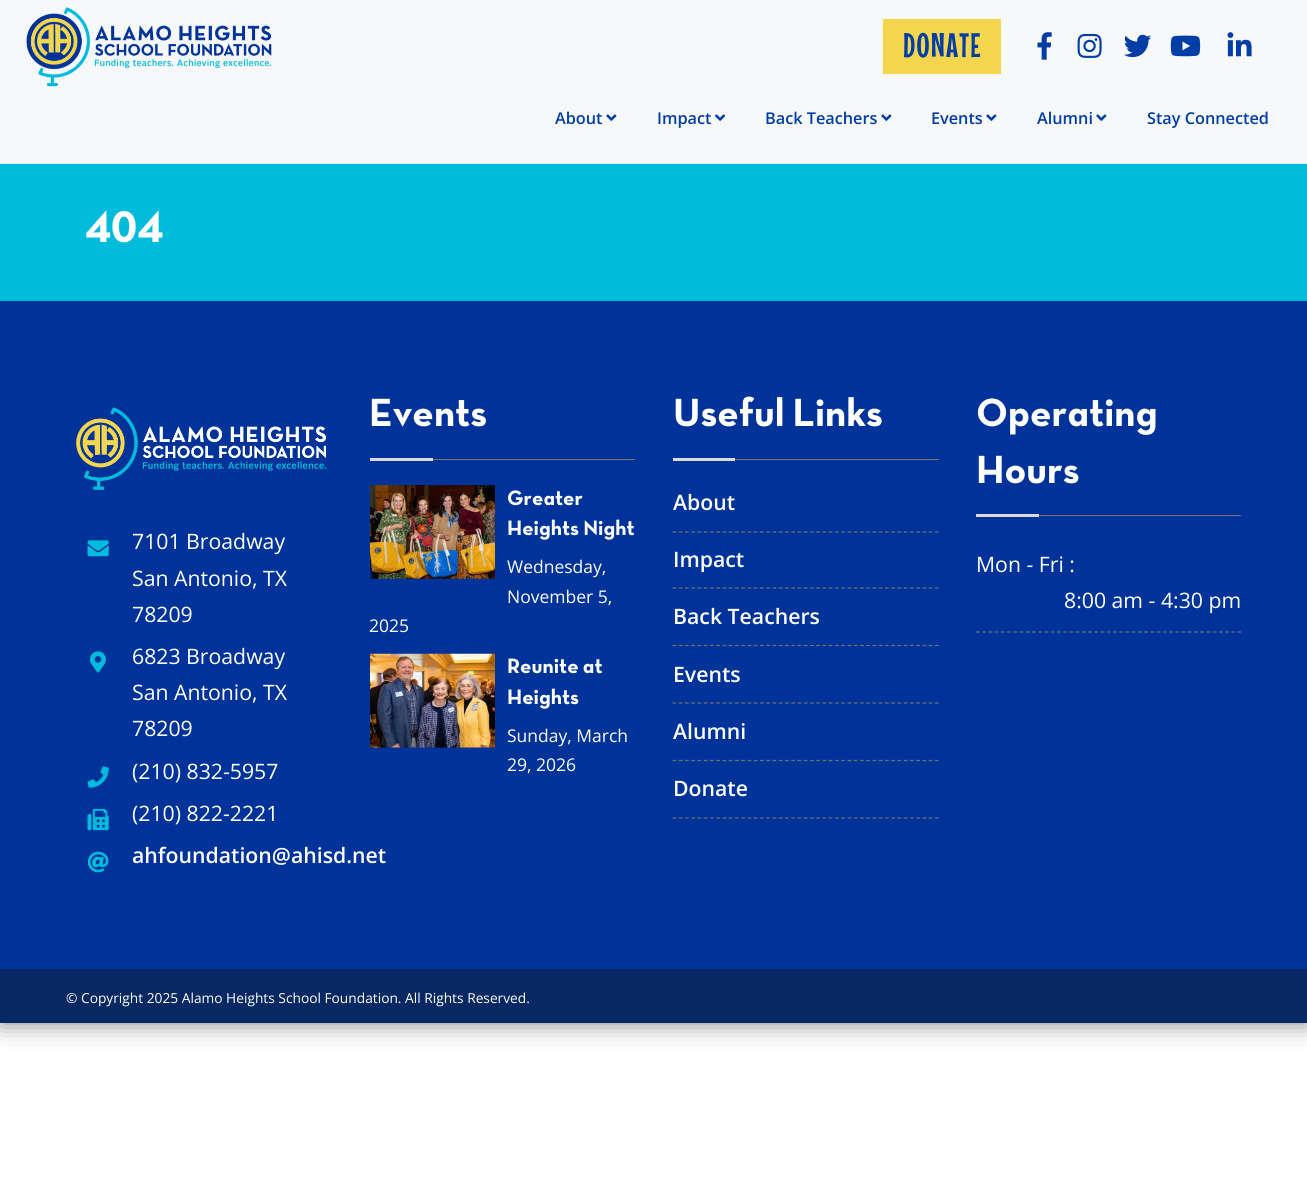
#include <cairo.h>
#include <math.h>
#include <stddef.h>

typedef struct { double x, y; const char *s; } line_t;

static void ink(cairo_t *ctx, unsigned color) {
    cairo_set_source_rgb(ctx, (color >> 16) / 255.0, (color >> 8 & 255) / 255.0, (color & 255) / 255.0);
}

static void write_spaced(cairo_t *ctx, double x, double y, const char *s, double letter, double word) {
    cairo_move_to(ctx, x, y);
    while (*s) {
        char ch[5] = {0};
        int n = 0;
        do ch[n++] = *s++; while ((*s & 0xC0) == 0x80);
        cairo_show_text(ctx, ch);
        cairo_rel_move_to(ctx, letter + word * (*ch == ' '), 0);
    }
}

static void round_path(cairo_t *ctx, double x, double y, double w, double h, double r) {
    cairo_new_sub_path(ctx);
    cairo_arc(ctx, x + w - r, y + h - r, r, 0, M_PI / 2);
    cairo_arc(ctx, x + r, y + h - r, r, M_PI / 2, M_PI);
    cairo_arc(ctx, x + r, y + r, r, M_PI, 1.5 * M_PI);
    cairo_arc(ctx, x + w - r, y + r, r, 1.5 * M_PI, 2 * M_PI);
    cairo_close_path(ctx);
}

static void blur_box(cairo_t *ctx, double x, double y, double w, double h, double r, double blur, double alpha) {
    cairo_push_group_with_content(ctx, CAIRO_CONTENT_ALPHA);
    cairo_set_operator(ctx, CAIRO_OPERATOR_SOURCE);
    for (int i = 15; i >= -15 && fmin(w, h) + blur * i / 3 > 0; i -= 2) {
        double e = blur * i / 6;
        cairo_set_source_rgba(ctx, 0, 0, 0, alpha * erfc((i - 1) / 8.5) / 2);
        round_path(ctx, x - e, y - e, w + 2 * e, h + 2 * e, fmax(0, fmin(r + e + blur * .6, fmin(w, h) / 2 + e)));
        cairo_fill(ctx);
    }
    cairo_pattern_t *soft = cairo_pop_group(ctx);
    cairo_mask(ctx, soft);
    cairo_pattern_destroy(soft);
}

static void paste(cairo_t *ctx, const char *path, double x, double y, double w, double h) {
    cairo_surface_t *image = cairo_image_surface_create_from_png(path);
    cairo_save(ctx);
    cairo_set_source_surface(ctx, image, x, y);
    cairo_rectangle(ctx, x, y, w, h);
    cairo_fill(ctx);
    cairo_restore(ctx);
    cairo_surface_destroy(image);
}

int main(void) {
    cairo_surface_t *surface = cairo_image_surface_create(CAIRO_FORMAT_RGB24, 1307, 1180);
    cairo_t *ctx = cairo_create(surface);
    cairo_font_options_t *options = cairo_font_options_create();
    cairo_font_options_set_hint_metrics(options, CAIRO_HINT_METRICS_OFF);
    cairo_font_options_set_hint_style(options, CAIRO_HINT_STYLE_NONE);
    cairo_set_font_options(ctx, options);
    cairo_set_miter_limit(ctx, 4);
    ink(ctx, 0xFFFFFF);
    cairo_paint(ctx);
    ink(ctx, 0x000000);
    blur_box(ctx, 0, 0, 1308, 1023, 0, 12.5, 0.5);
    ink(ctx, 0xF7F8FA);
    cairo_rectangle(ctx, 0, 0, 1307, 163);
    cairo_fill(ctx);
    ink(ctx, 0xEEEEEE);
    cairo_rectangle(ctx, 0, 163, 1307, 1);
    cairo_fill(ctx);
    paste(ctx, "media/1.png", 26, 7, 246, 80);
    ink(ctx, 0xF3D54E);
    cairo_rectangle(ctx, 883, 19, 118, 55);
    cairo_fill(ctx);
    cairo_select_font_face(ctx, "Mouse Memoirs", CAIRO_FONT_SLANT_NORMAL, CAIRO_FONT_WEIGHT_NORMAL);
    cairo_set_font_size(ctx, 34);
    ink(ctx, 0x003DA5);
    write_spaced(ctx, 903, 57, "DONATE", 1.25, 0);
    paste(ctx, "media/2.png", 1037, 32, 15, 28);
    paste(ctx, "media/3.png", 1077, 33, 25, 25);
    paste(ctx, "media/4.png", 1124, 34, 28, 24);
    paste(ctx, "media/5.png", 1170, 35, 31, 22);
    paste(ctx, "media/6.png", 1227, 32, 25, 25);
    cairo_select_font_face(ctx, "Open Sans SemiBold", CAIRO_FONT_SLANT_NORMAL, CAIRO_FONT_WEIGHT_NORMAL);
    cairo_set_font_size(ctx, 16.25);
    cairo_move_to(ctx, 555, 124);
    cairo_show_text(ctx, "About");
    paste(ctx, "media/7.png", 606, 114, 11, 7);
    cairo_move_to(ctx, 657, 124);
    cairo_show_text(ctx, "Impact");
    paste(ctx, "media/8.png", 715, 114, 11, 7);
    cairo_move_to(ctx, 765, 124);
    cairo_show_text(ctx, "Back Teachers");
    paste(ctx, "media/7.png", 881, 114, 11, 7);
    cairo_move_to(ctx, 931, 124);
    cairo_show_text(ctx, "Events");
    paste(ctx, "media/7.png", 986, 114, 11, 7);
    cairo_move_to(ctx, 1037, 124);
    cairo_show_text(ctx, "Alumni");
    paste(ctx, "media/7.png", 1096, 114, 11, 7);
    cairo_move_to(ctx, 1147, 124);
    cairo_show_text(ctx, "Stay Connected");
    ink(ctx, 0x00BBDC);
    cairo_rectangle(ctx, 0, 164, 1307, 137);
    cairo_fill(ctx);
    cairo_select_font_face(ctx, "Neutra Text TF", CAIRO_FONT_SLANT_NORMAL, CAIRO_FONT_WEIGHT_BOLD);
    cairo_set_font_size(ctx, 45);
    ink(ctx, 0xFFFFFF);
    cairo_move_to(ctx, 85, 242);
    cairo_show_text(ctx, "404");
    ink(ctx, 0x003399);
    cairo_rectangle(ctx, 0, 301, 1307, 668);
    cairo_fill(ctx);
    ink(ctx, 0x707070);
    cairo_rectangle(ctx, 433, 459, 202, 1);
    cairo_fill(ctx);
    cairo_set_font_size(ctx, 40);
    ink(ctx, 0xFFFFFF);
    cairo_move_to(ctx, 369, 426);
    cairo_show_text(ctx, "Events");
    ink(ctx, 0xDADADA);
    cairo_rectangle(ctx, 370, 458, 63, 3);
    cairo_fill(ctx);
    paste(ctx, "media/9.png", 370, 485, 125, 94);
    cairo_set_font_size(ctx, 21.25);
    ink(ctx, 0xFFFFFF);
    cairo_move_to(ctx, 507, 505);
    cairo_show_text(ctx, "Greater");
    cairo_move_to(ctx, 507, 535);
    cairo_show_text(ctx, "Heights Night");
    cairo_select_font_face(ctx, "Open Sans", CAIRO_FONT_SLANT_NORMAL, CAIRO_FONT_WEIGHT_NORMAL);
    cairo_set_font_size(ctx, 17.5);
    {
        static const line_t items[] = {
            {507, 573, "Wednesday,"},
            {507, 603, "November 5,"},
            {369, 632, "2025"},
        };
        for (size_t i = 0; i < sizeof items / sizeof *items; i++) {
            cairo_move_to(ctx, items[i].x, items[i].y);
            cairo_show_text(ctx, items[i].s);
        }
    }
    paste(ctx, "media/10.png", 370, 653, 125, 95);
    cairo_select_font_face(ctx, "Neutra Text TF", CAIRO_FONT_SLANT_NORMAL, CAIRO_FONT_WEIGHT_BOLD);
    cairo_set_font_size(ctx, 21.25);
    cairo_move_to(ctx, 507, 673);
    cairo_show_text(ctx, "Reunite at");
    cairo_move_to(ctx, 507, 704);
    cairo_show_text(ctx, "Heights");
    cairo_select_font_face(ctx, "Open Sans", CAIRO_FONT_SLANT_NORMAL, CAIRO_FONT_WEIGHT_NORMAL);
    cairo_set_font_size(ctx, 17.5);
    cairo_move_to(ctx, 507, 742);
    cairo_show_text(ctx, "Sunday, March");
    cairo_move_to(ctx, 507, 771);
    cairo_show_text(ctx, "29, 2026");
    ink(ctx, 0x707070);
    cairo_rectangle(ctx, 735, 459, 204, 1);
    cairo_fill(ctx);
    cairo_select_font_face(ctx, "Neutra Text TF", CAIRO_FONT_SLANT_NORMAL, CAIRO_FONT_WEIGHT_BOLD);
    cairo_set_font_size(ctx, 40);
    ink(ctx, 0xFFFFFF);
    cairo_move_to(ctx, 673, 426);
    cairo_show_text(ctx, "Useful Links");
    ink(ctx, 0xDADADA);
    cairo_rectangle(ctx, 673, 458, 62, 3);
    cairo_fill(ctx);
    cairo_new_path(ctx);
    cairo_move_to(ctx, 672.5, 532);
    cairo_line_to(ctx, 939, 532);
    ink(ctx, 0x707070);
    cairo_set_line_width(ctx, 1.2);
    cairo_set_dash(ctx, (double[]){3.75, 2.5}, 2, 0);
    cairo_stroke(ctx);
    cairo_select_font_face(ctx, "Open Sans SemiBold", CAIRO_FONT_SLANT_NORMAL, CAIRO_FONT_WEIGHT_NORMAL);
    cairo_set_font_size(ctx, 21.25);
    ink(ctx, 0xFFFFFF);
    cairo_move_to(ctx, 673, 510);
    cairo_show_text(ctx, "About");
    cairo_new_path(ctx);
    cairo_move_to(ctx, 672.5, 588);
    cairo_line_to(ctx, 939, 588);
    ink(ctx, 0x707070);
    cairo_stroke(ctx);
    ink(ctx, 0xFFFFFF);
    cairo_move_to(ctx, 673, 567);
    cairo_show_text(ctx, "Impact");
    cairo_new_path(ctx);
    cairo_move_to(ctx, 672.5, 645.5);
    cairo_line_to(ctx, 939, 645.5);
    ink(ctx, 0x707070);
    cairo_stroke(ctx);
    ink(ctx, 0xFFFFFF);
    cairo_move_to(ctx, 673, 624);
    cairo_show_text(ctx, "Back Teachers");
    cairo_new_path(ctx);
    cairo_move_to(ctx, 672.5, 703);
    cairo_line_to(ctx, 939, 703);
    ink(ctx, 0x707070);
    cairo_stroke(ctx);
    ink(ctx, 0xFFFFFF);
    cairo_move_to(ctx, 673, 682);
    cairo_show_text(ctx, "Events");
    cairo_new_path(ctx);
    cairo_move_to(ctx, 672.5, 760.5);
    cairo_line_to(ctx, 939, 760.5);
    ink(ctx, 0x707070);
    cairo_stroke(ctx);
    ink(ctx, 0xFFFFFF);
    cairo_move_to(ctx, 673, 739);
    cairo_show_text(ctx, "Alumni");
    cairo_new_path(ctx);
    cairo_move_to(ctx, 672.5, 818);
    cairo_line_to(ctx, 939, 818);
    ink(ctx, 0x707070);
    cairo_stroke(ctx);
    ink(ctx, 0xFFFFFF);
    cairo_move_to(ctx, 673, 796);
    cairo_show_text(ctx, "Donate");
    ink(ctx, 0x707070);
    cairo_rectangle(ctx, 1039, 515, 202, 1);
    cairo_fill(ctx);
    cairo_select_font_face(ctx, "Neutra Text TF", CAIRO_FONT_SLANT_NORMAL, CAIRO_FONT_WEIGHT_BOLD);
    cairo_set_font_size(ctx, 40);
    ink(ctx, 0xFFFFFF);
    cairo_move_to(ctx, 976, 426);
    cairo_show_text(ctx, "Operating");
    cairo_move_to(ctx, 976, 483);
    cairo_show_text(ctx, "Hours");
    ink(ctx, 0xDADADA);
    cairo_rectangle(ctx, 976, 514, 63, 3);
    cairo_fill(ctx);
    cairo_new_path(ctx);
    cairo_move_to(ctx, 976, 632);
    cairo_line_to(ctx, 1241, 632);
    ink(ctx, 0x707070);
    cairo_set_dash(ctx, (double[]){3.75, 2.48}, 2, 0);
    cairo_stroke(ctx);
    cairo_select_font_face(ctx, "Open Sans", CAIRO_FONT_SLANT_NORMAL, CAIRO_FONT_WEIGHT_NORMAL);
    cairo_set_font_size(ctx, 21.25);
    ink(ctx, 0xFFFFFF);
    cairo_move_to(ctx, 976, 572);
    cairo_show_text(ctx, "Mon - Fri :");
    cairo_move_to(ctx, 1064, 608);
    cairo_show_text(ctx, "8:00 am - 4:30 pm");
    paste(ctx, "media/11.png", 76, 407, 251, 83);
    paste(ctx, "media/12.png", 87, 540, 22, 17);
    {
        static const line_t items[] = {
            {132, 549, "7101 Broadway"},
            {132, 586, "San Antonio, TX"},
            {132, 622, "78209"},
        };
        for (size_t i = 0; i < sizeof items / sizeof *items; i++) {
            cairo_move_to(ctx, items[i].x, items[i].y);
            cairo_show_text(ctx, items[i].s);
        }
    }
    paste(ctx, "media/13.png", 90, 651, 16, 22);
    {
        static const line_t items[] = {
            {132, 664, "6823 Broadway"},
            {132, 700, "San Antonio, TX"},
            {132, 736, "78209"},
        };
        for (size_t i = 0; i < sizeof items / sizeof *items; i++) {
            cairo_move_to(ctx, items[i].x, items[i].y);
            cairo_show_text(ctx, items[i].s);
        }
    }
    paste(ctx, "media/14.png", 87, 766, 22, 22);
    cairo_move_to(ctx, 132, 779);
    cairo_show_text(ctx, "(210) 832-5957");
    paste(ctx, "media/15.png", 87, 808, 22, 23);
    cairo_move_to(ctx, 132, 821);
    cairo_show_text(ctx, "(210) 822-2221");
    paste(ctx, "media/16.png", 87, 851, 22, 22);
    cairo_select_font_face(ctx, "Open Sans SemiBold", CAIRO_FONT_SLANT_NORMAL, CAIRO_FONT_WEIGHT_NORMAL);
    cairo_move_to(ctx, 132, 863);
    cairo_show_text(ctx, "ahfoundation@ahisd.net");
    ink(ctx, 0x072862);
    cairo_rectangle(ctx, 0, 969, 1307, 54);
    cairo_fill(ctx);
    cairo_select_font_face(ctx, "Open Sans", CAIRO_FONT_SLANT_NORMAL, CAIRO_FONT_WEIGHT_NORMAL);
    cairo_set_font_size(ctx, 13.75);
    ink(ctx, 0xFFFFFF);
    cairo_move_to(ctx, 66, 1003);
    cairo_show_text(ctx, "© Copyright 2025 Alamo Heights School Foundation. All Rights Reserved.");
    cairo_surface_write_to_png(surface, "image.png");
    cairo_font_options_destroy(options);
    cairo_destroy(ctx);
    cairo_surface_destroy(surface);
    return 0;
}
